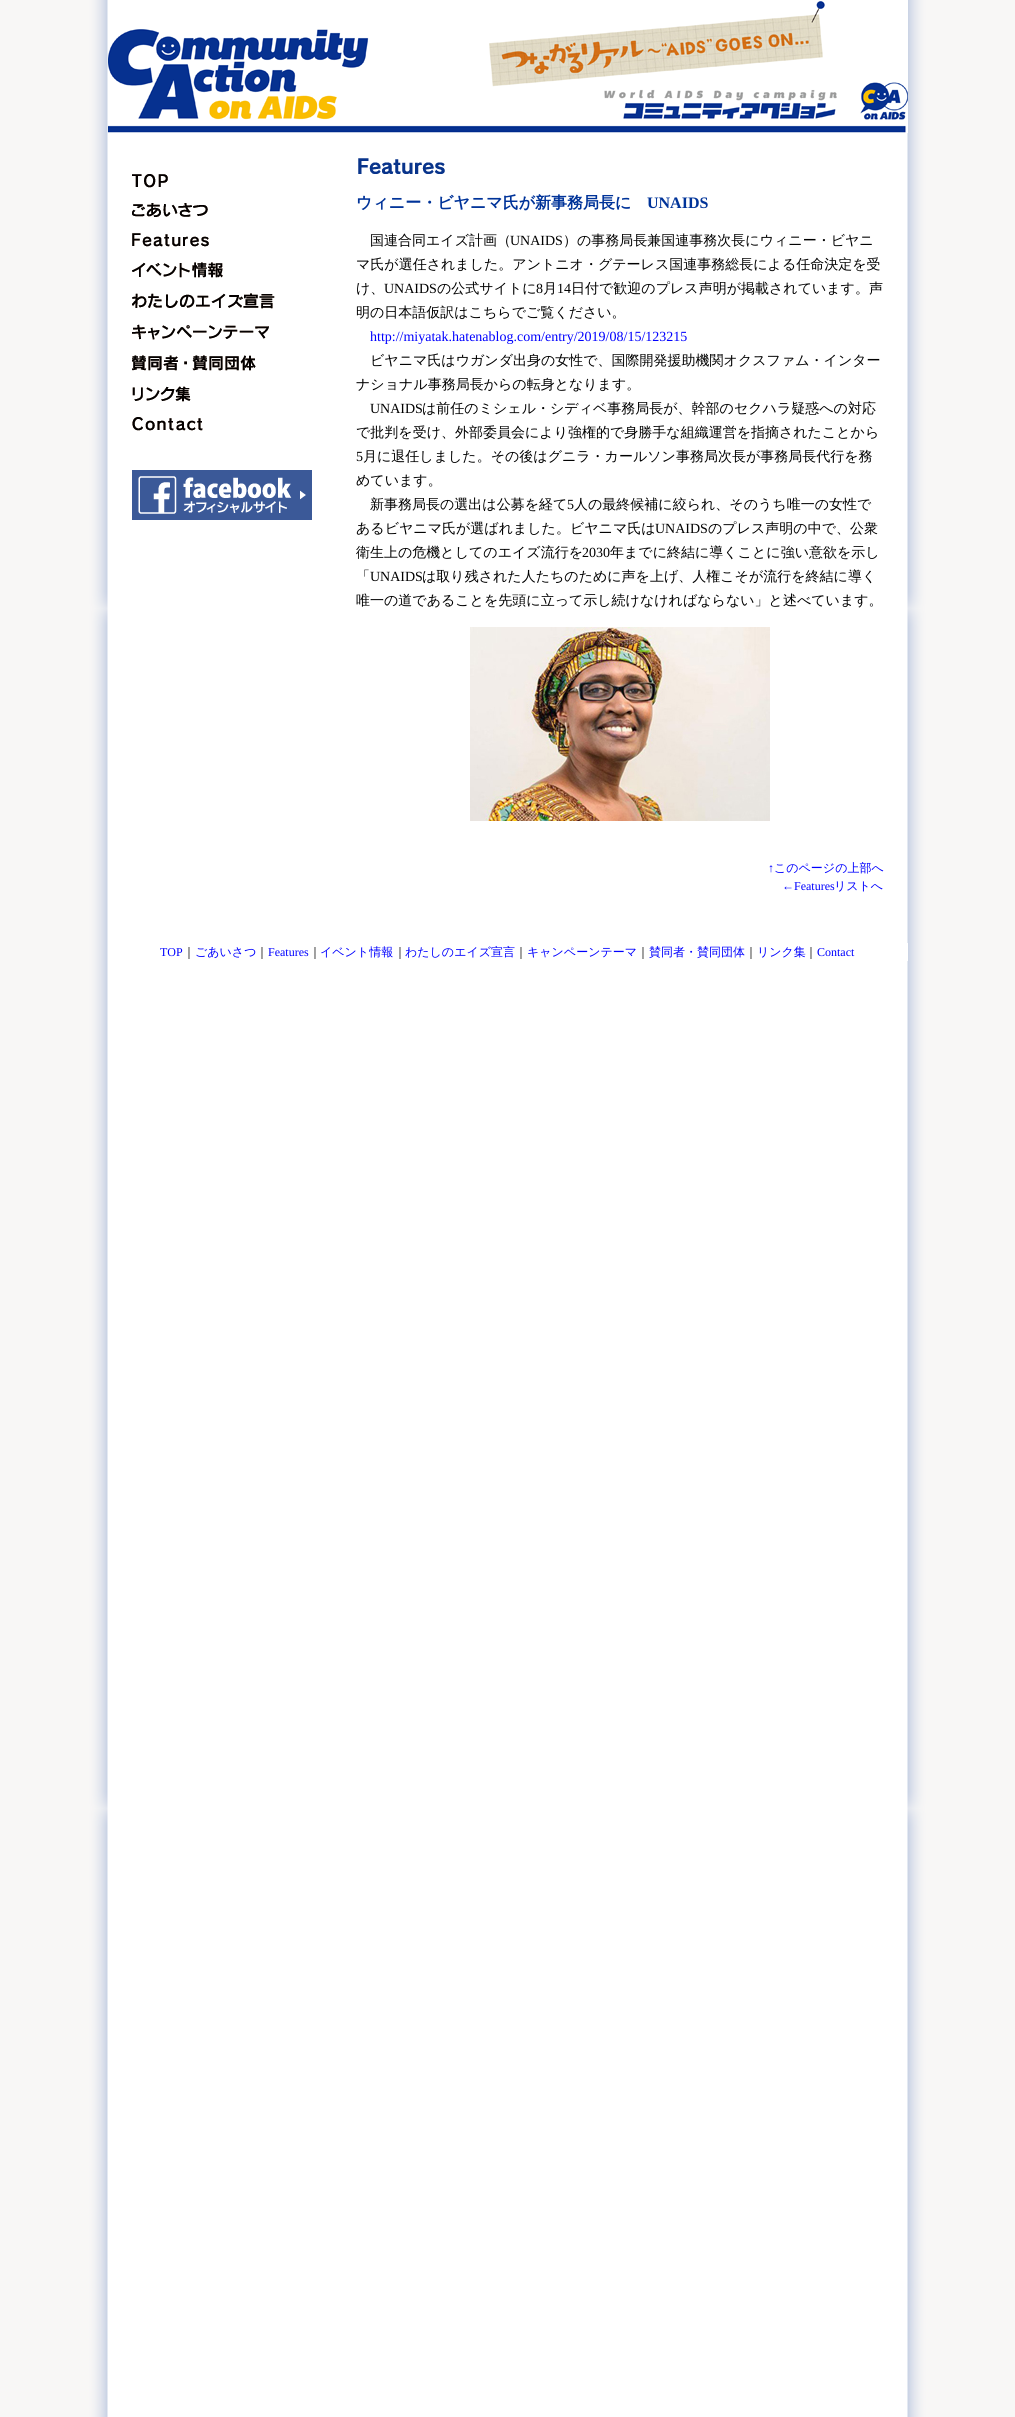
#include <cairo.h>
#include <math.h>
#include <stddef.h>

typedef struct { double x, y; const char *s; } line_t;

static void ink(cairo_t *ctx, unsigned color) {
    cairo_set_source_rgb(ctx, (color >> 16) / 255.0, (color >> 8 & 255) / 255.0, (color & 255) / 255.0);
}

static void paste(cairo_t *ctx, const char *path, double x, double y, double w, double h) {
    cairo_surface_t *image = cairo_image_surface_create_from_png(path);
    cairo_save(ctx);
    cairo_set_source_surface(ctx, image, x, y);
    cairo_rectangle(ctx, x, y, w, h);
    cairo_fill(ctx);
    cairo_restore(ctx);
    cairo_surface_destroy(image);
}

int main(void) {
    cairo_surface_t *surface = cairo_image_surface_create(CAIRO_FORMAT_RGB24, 1015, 2417);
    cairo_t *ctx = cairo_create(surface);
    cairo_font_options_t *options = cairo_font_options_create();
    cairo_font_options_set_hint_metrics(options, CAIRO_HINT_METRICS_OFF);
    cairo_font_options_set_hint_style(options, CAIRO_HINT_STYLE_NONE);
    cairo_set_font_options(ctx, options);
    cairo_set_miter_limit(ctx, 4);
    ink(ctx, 0xFFFFFF);
    cairo_paint(ctx);
    paste(ctx, "media/1.png", 0, 0, 1015, 2417);
    paste(ctx, "media/2.png", 108, 0, 800, 133);
    paste(ctx, "media/3.png", 132, 174, 36, 14);
    paste(ctx, "media/4.png", 132, 203, 76, 14);
    paste(ctx, "media/5.png", 132, 233, 77, 14);
    paste(ctx, "media/6.png", 132, 262, 91, 16);
    paste(ctx, "media/7.png", 132, 293, 143, 16);
    paste(ctx, "media/8.png", 132, 324, 137, 16);
    paste(ctx, "media/9.png", 132, 355, 124, 16);
    paste(ctx, "media/10.png", 132, 386, 59, 16);
    paste(ctx, "media/11.png", 132, 417, 71, 14);
    paste(ctx, "media/12.png", 132, 470, 180, 50);
    paste(ctx, "media/13.png", 358, 158, 87, 16);
    cairo_select_font_face(ctx, "WenQuanYi Zen Hei", CAIRO_FONT_SLANT_NORMAL, CAIRO_FONT_WEIGHT_BOLD);
    cairo_set_font_size(ctx, 16);
    ink(ctx, 0x003399);
    cairo_move_to(ctx, 356, 208);
    cairo_show_text(ctx, "ウィニー・ビヤニマ氏が新事務局長に");
    cairo_select_font_face(ctx, "Liberation Serif", CAIRO_FONT_SLANT_NORMAL, CAIRO_FONT_WEIGHT_BOLD);
    cairo_move_to(ctx, 647, 208);
    cairo_show_text(ctx, "UNAIDS");
    cairo_select_font_face(ctx, "WenQuanYi Zen Hei Medium", CAIRO_FONT_SLANT_NORMAL, CAIRO_FONT_WEIGHT_NORMAL);
    cairo_set_font_size(ctx, 14);
    ink(ctx, 0x000000);
    cairo_move_to(ctx, 370, 245);
    cairo_show_text(ctx, "国連合同エイズ計画（");
    cairo_select_font_face(ctx, "Liberation Serif", CAIRO_FONT_SLANT_NORMAL, CAIRO_FONT_WEIGHT_NORMAL);
    cairo_move_to(ctx, 510, 245);
    cairo_show_text(ctx, "UNAIDS");
    cairo_select_font_face(ctx, "WenQuanYi Zen Hei Medium", CAIRO_FONT_SLANT_NORMAL, CAIRO_FONT_WEIGHT_NORMAL);
    {
        static const line_t items[] = {
            {563, 245, "）の事務局長兼国連事務次長にウィニー・ビヤニ"},
            {356, 269, "マ氏が選任されました。アントニオ・グテーレス国連事務総長による任命決定を受"},
            {356, 293, "け、"},
        };
        for (size_t i = 0; i < sizeof items / sizeof *items; i++) {
            cairo_move_to(ctx, items[i].x, items[i].y);
            cairo_show_text(ctx, items[i].s);
        }
    }
    cairo_select_font_face(ctx, "Liberation Serif", CAIRO_FONT_SLANT_NORMAL, CAIRO_FONT_WEIGHT_NORMAL);
    cairo_move_to(ctx, 384, 293);
    cairo_show_text(ctx, "UNAIDS");
    cairo_select_font_face(ctx, "WenQuanYi Zen Hei Medium", CAIRO_FONT_SLANT_NORMAL, CAIRO_FONT_WEIGHT_NORMAL);
    cairo_move_to(ctx, 437, 293);
    cairo_show_text(ctx, "の公式サイトに");
    cairo_select_font_face(ctx, "Liberation Serif", CAIRO_FONT_SLANT_NORMAL, CAIRO_FONT_WEIGHT_NORMAL);
    cairo_move_to(ctx, 536, 293);
    cairo_show_text(ctx, "8");
    cairo_select_font_face(ctx, "WenQuanYi Zen Hei Medium", CAIRO_FONT_SLANT_NORMAL, CAIRO_FONT_WEIGHT_NORMAL);
    cairo_move_to(ctx, 543, 293);
    cairo_show_text(ctx, "月");
    cairo_select_font_face(ctx, "Liberation Serif", CAIRO_FONT_SLANT_NORMAL, CAIRO_FONT_WEIGHT_NORMAL);
    cairo_move_to(ctx, 557, 293);
    cairo_show_text(ctx, "14");
    cairo_select_font_face(ctx, "WenQuanYi Zen Hei Medium", CAIRO_FONT_SLANT_NORMAL, CAIRO_FONT_WEIGHT_NORMAL);
    cairo_move_to(ctx, 571, 293);
    cairo_show_text(ctx, "日付で歓迎のプレス声明が掲載されています。声");
    cairo_move_to(ctx, 356, 317);
    cairo_show_text(ctx, "明の日本語仮訳はこちらでご覧ください。");
    cairo_select_font_face(ctx, "Liberation Serif", CAIRO_FONT_SLANT_NORMAL, CAIRO_FONT_WEIGHT_NORMAL);
    ink(ctx, 0x0000FF);
    cairo_move_to(ctx, 370, 341);
    cairo_show_text(ctx, "http://miyatak.hatenablog.com/entry/2019/08/15/123215");
    cairo_select_font_face(ctx, "WenQuanYi Zen Hei Medium", CAIRO_FONT_SLANT_NORMAL, CAIRO_FONT_WEIGHT_NORMAL);
    ink(ctx, 0x000000);
    cairo_move_to(ctx, 370, 365);
    cairo_show_text(ctx, "ビヤニマ氏はウガンダ出身の女性で、国際開発援助機関オクスファム・インター");
    cairo_move_to(ctx, 356, 389);
    cairo_show_text(ctx, "ナショナル事務局長からの転身となります。");
    cairo_select_font_face(ctx, "Liberation Serif", CAIRO_FONT_SLANT_NORMAL, CAIRO_FONT_WEIGHT_NORMAL);
    cairo_move_to(ctx, 370, 413);
    cairo_show_text(ctx, "UNAIDS");
    cairo_select_font_face(ctx, "WenQuanYi Zen Hei Medium", CAIRO_FONT_SLANT_NORMAL, CAIRO_FONT_WEIGHT_NORMAL);
    cairo_move_to(ctx, 422, 413);
    cairo_show_text(ctx, "は前任のミシェル・シディベ事務局長が、幹部のセクハラ疑惑への対応");
    cairo_move_to(ctx, 356, 437);
    cairo_show_text(ctx, "で批判を受け、外部委員会により強権的で身勝手な組織運営を指摘されたことから");
    cairo_select_font_face(ctx, "Liberation Serif", CAIRO_FONT_SLANT_NORMAL, CAIRO_FONT_WEIGHT_NORMAL);
    cairo_move_to(ctx, 356, 461);
    cairo_show_text(ctx, "5");
    cairo_select_font_face(ctx, "WenQuanYi Zen Hei Medium", CAIRO_FONT_SLANT_NORMAL, CAIRO_FONT_WEIGHT_NORMAL);
    {
        static const line_t items[] = {
            {363, 461, "月に退任しました。その後はグニラ・カールソン事務局次長が事務局長代行を務"},
            {356, 485, "めています。"},
            {370, 509, "新事務局長の選出は公募を経て"},
        };
        for (size_t i = 0; i < sizeof items / sizeof *items; i++) {
            cairo_move_to(ctx, items[i].x, items[i].y);
            cairo_show_text(ctx, items[i].s);
        }
    }
    cairo_select_font_face(ctx, "Liberation Serif", CAIRO_FONT_SLANT_NORMAL, CAIRO_FONT_WEIGHT_NORMAL);
    cairo_move_to(ctx, 567, 509);
    cairo_show_text(ctx, "5");
    cairo_select_font_face(ctx, "WenQuanYi Zen Hei Medium", CAIRO_FONT_SLANT_NORMAL, CAIRO_FONT_WEIGHT_NORMAL);
    cairo_move_to(ctx, 574, 509);
    cairo_show_text(ctx, "人の最終候補に絞られ、そのうち唯一の女性で");
    cairo_move_to(ctx, 356, 533);
    cairo_show_text(ctx, "あるビヤニマ氏が選ばれました。ビヤニマ氏は");
    cairo_select_font_face(ctx, "Liberation Serif", CAIRO_FONT_SLANT_NORMAL, CAIRO_FONT_WEIGHT_NORMAL);
    cairo_move_to(ctx, 655, 533);
    cairo_show_text(ctx, "UNAIDS");
    cairo_select_font_face(ctx, "WenQuanYi Zen Hei Medium", CAIRO_FONT_SLANT_NORMAL, CAIRO_FONT_WEIGHT_NORMAL);
    cairo_move_to(ctx, 708, 533);
    cairo_show_text(ctx, "のプレス声明の中で、公衆");
    cairo_move_to(ctx, 356, 557);
    cairo_show_text(ctx, "衛生上の危機としてのエイズ流行を");
    cairo_select_font_face(ctx, "Liberation Serif", CAIRO_FONT_SLANT_NORMAL, CAIRO_FONT_WEIGHT_NORMAL);
    cairo_move_to(ctx, 582, 557);
    cairo_show_text(ctx, "2030");
    cairo_select_font_face(ctx, "WenQuanYi Zen Hei Medium", CAIRO_FONT_SLANT_NORMAL, CAIRO_FONT_WEIGHT_NORMAL);
    cairo_move_to(ctx, 610, 557);
    cairo_show_text(ctx, "年までに終結に導くことに強い意欲を示し");
    cairo_move_to(ctx, 356, 581);
    cairo_show_text(ctx, "「");
    cairo_select_font_face(ctx, "Liberation Serif", CAIRO_FONT_SLANT_NORMAL, CAIRO_FONT_WEIGHT_NORMAL);
    cairo_move_to(ctx, 370, 581);
    cairo_show_text(ctx, "UNAIDS");
    cairo_select_font_face(ctx, "WenQuanYi Zen Hei Medium", CAIRO_FONT_SLANT_NORMAL, CAIRO_FONT_WEIGHT_NORMAL);
    cairo_move_to(ctx, 422, 581);
    cairo_show_text(ctx, "は取り残された人たちのために声を上げ、人権こそが流行を終結に導く");
    cairo_move_to(ctx, 356, 605);
    cairo_show_text(ctx, "唯一の道であることを先頭に立って示し続けなければならない」と述べています。");
    paste(ctx, "media/14.png", 470, 627, 300, 194);
    cairo_select_font_face(ctx, "Liberation Serif", CAIRO_FONT_SLANT_NORMAL, CAIRO_FONT_WEIGHT_NORMAL);
    cairo_set_font_size(ctx, 12);
    ink(ctx, 0x0000FF);
    cairo_move_to(ctx, 768, 872);
    cairo_show_text(ctx, "↑");
    cairo_select_font_face(ctx, "WenQuanYi Zen Hei Medium", CAIRO_FONT_SLANT_NORMAL, CAIRO_FONT_WEIGHT_NORMAL);
    cairo_move_to(ctx, 774, 872);
    cairo_show_text(ctx, "このページの上部へ");
    cairo_select_font_face(ctx, "Liberation Serif", CAIRO_FONT_SLANT_NORMAL, CAIRO_FONT_WEIGHT_NORMAL);
    cairo_move_to(ctx, 782, 890);
    cairo_show_text(ctx, "←Features");
    cairo_select_font_face(ctx, "WenQuanYi Zen Hei Medium", CAIRO_FONT_SLANT_NORMAL, CAIRO_FONT_WEIGHT_NORMAL);
    cairo_move_to(ctx, 834, 890);
    cairo_show_text(ctx, "リストへ");
    ink(ctx, 0xFFFFFF);
    cairo_rectangle(ctx, 907, 943, 1, 18);
    cairo_fill(ctx);
    cairo_select_font_face(ctx, "Liberation Serif", CAIRO_FONT_SLANT_NORMAL, CAIRO_FONT_WEIGHT_NORMAL);
    ink(ctx, 0x0000FF);
    cairo_move_to(ctx, 160, 956);
    cairo_show_text(ctx, "TOP");
    cairo_select_font_face(ctx, "WenQuanYi Zen Hei Medium", CAIRO_FONT_SLANT_NORMAL, CAIRO_FONT_WEIGHT_NORMAL);
    ink(ctx, 0x000000);
    cairo_move_to(ctx, 183, 956);
    cairo_show_text(ctx, "｜");
    ink(ctx, 0x0000FF);
    cairo_move_to(ctx, 195, 956);
    cairo_show_text(ctx, "ごあいさつ");
    ink(ctx, 0x000000);
    cairo_move_to(ctx, 256, 956);
    cairo_show_text(ctx, "｜");
    cairo_select_font_face(ctx, "Liberation Serif", CAIRO_FONT_SLANT_NORMAL, CAIRO_FONT_WEIGHT_NORMAL);
    ink(ctx, 0x0000FF);
    cairo_move_to(ctx, 268, 956);
    cairo_show_text(ctx, "Features");
    cairo_select_font_face(ctx, "WenQuanYi Zen Hei Medium", CAIRO_FONT_SLANT_NORMAL, CAIRO_FONT_WEIGHT_NORMAL);
    ink(ctx, 0x000000);
    cairo_move_to(ctx, 309, 956);
    cairo_show_text(ctx, "｜");
    ink(ctx, 0x0000FF);
    cairo_move_to(ctx, 320, 956);
    cairo_show_text(ctx, "イベント情報");
    ink(ctx, 0x000000);
    cairo_move_to(ctx, 394, 956);
    cairo_show_text(ctx, "｜");
    ink(ctx, 0x0000FF);
    cairo_move_to(ctx, 405, 956);
    cairo_show_text(ctx, "わたしのエイズ宣言");
    ink(ctx, 0x000000);
    cairo_move_to(ctx, 515, 956);
    cairo_show_text(ctx, "｜");
    ink(ctx, 0x0000FF);
    cairo_move_to(ctx, 527, 956);
    cairo_show_text(ctx, "キャンペーンテーマ");
    ink(ctx, 0x000000);
    cairo_move_to(ctx, 637, 956);
    cairo_show_text(ctx, "｜");
    ink(ctx, 0x0000FF);
    cairo_move_to(ctx, 649, 956);
    cairo_show_text(ctx, "賛同者・賛同団体");
    ink(ctx, 0x000000);
    cairo_move_to(ctx, 745, 956);
    cairo_show_text(ctx, "｜");
    ink(ctx, 0x0000FF);
    cairo_move_to(ctx, 757, 956);
    cairo_show_text(ctx, "リンク集");
    ink(ctx, 0x000000);
    cairo_move_to(ctx, 805, 956);
    cairo_show_text(ctx, "｜");
    cairo_select_font_face(ctx, "Liberation Serif", CAIRO_FONT_SLANT_NORMAL, CAIRO_FONT_WEIGHT_NORMAL);
    ink(ctx, 0x0000FF);
    cairo_move_to(ctx, 817, 956);
    cairo_show_text(ctx, "Contact");
    cairo_surface_write_to_png(surface, "image.png");
    cairo_font_options_destroy(options);
    cairo_destroy(ctx);
    cairo_surface_destroy(surface);
    return 0;
}
